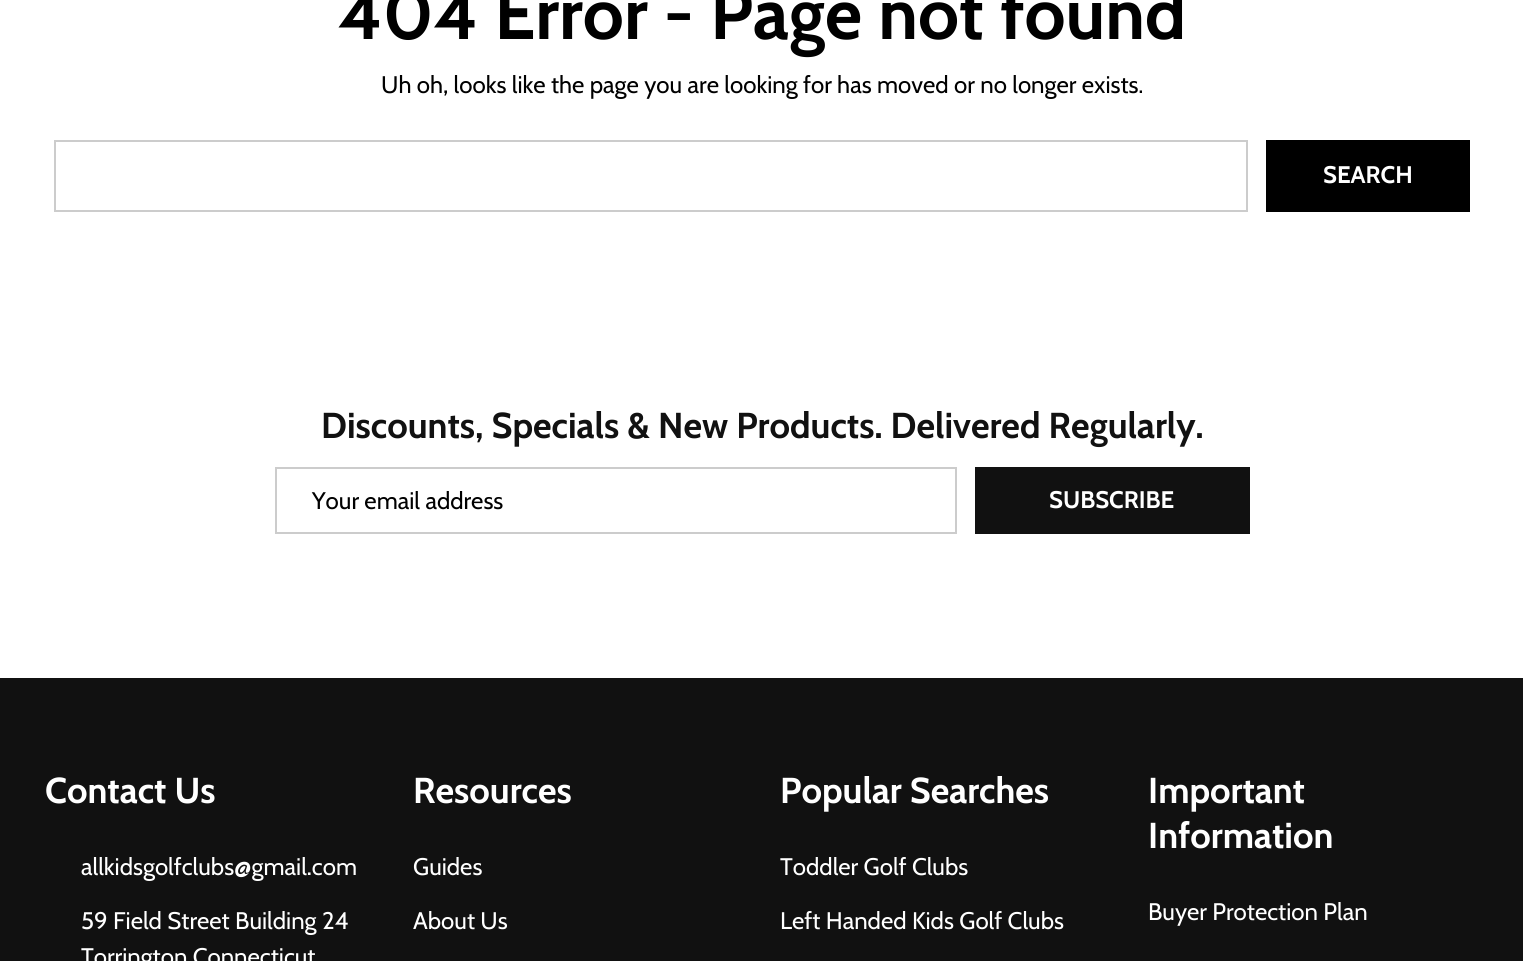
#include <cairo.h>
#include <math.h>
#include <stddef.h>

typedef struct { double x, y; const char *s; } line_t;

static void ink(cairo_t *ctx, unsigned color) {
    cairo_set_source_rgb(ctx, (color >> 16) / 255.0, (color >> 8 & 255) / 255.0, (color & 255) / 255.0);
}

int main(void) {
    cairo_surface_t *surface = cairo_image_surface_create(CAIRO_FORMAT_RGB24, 1523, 961);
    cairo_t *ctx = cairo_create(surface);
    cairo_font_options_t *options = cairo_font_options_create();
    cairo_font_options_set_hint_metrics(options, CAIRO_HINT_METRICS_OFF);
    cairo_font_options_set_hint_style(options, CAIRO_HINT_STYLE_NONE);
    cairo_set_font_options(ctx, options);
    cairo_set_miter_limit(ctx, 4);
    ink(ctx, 0xFFFFFF);
    cairo_paint(ctx);
    cairo_select_font_face(ctx, "Cabin", CAIRO_FONT_SLANT_NORMAL, CAIRO_FONT_WEIGHT_BOLD);
    cairo_set_font_size(ctx, 72);
    ink(ctx, 0x000000);
    cairo_move_to(ctx, 338, 39);
    cairo_show_text(ctx, "404 Error - Page not found");
    cairo_select_font_face(ctx, "Cabin", CAIRO_FONT_SLANT_NORMAL, CAIRO_FONT_WEIGHT_NORMAL);
    cairo_set_font_size(ctx, 24);
    cairo_move_to(ctx, 381, 93);
    cairo_show_text(ctx, "Uh oh, looks like the page you are looking for has moved or no longer exists.");
    cairo_rectangle(ctx, 55, 141, 1192, 70);
    ink(ctx, 0xCCCCCC);
    cairo_stroke(ctx);
    ink(ctx, 0x000000);
    cairo_rectangle(ctx, 1266, 140, 204, 72);
    cairo_fill(ctx);
    cairo_select_font_face(ctx, "Cabin", CAIRO_FONT_SLANT_NORMAL, CAIRO_FONT_WEIGHT_BOLD);
    ink(ctx, 0xFFFFFF);
    cairo_move_to(ctx, 1323, 183);
    cairo_show_text(ctx, "SEARCH");
    cairo_set_font_size(ctx, 36);
    ink(ctx, 0x111111);
    cairo_move_to(ctx, 321, 438);
    cairo_show_text(ctx, "Discounts, Specials & New Products. Delivered Regularly.");
    cairo_rectangle(ctx, 276, 468, 680, 65);
    ink(ctx, 0xCCCCCC);
    cairo_stroke(ctx);
    cairo_select_font_face(ctx, "Cabin", CAIRO_FONT_SLANT_NORMAL, CAIRO_FONT_WEIGHT_NORMAL);
    cairo_set_font_size(ctx, 24);
    ink(ctx, 0x000000);
    cairo_move_to(ctx, 312, 509);
    cairo_show_text(ctx, "Your email address");
    ink(ctx, 0x111111);
    cairo_rectangle(ctx, 975, 467, 275, 67);
    cairo_fill(ctx);
    cairo_select_font_face(ctx, "Cabin", CAIRO_FONT_SLANT_NORMAL, CAIRO_FONT_WEIGHT_BOLD);
    ink(ctx, 0xFFFFFF);
    cairo_move_to(ctx, 1049, 508);
    cairo_show_text(ctx, "SUBSCRIBE");
    ink(ctx, 0x111111);
    cairo_rectangle(ctx, 0, 678, 1523, 283);
    cairo_fill(ctx);
    cairo_set_font_size(ctx, 36);
    ink(ctx, 0xFFFFFF);
    cairo_move_to(ctx, 45, 803);
    cairo_show_text(ctx, "Contact Us");
    cairo_select_font_face(ctx, "Cabin", CAIRO_FONT_SLANT_NORMAL, CAIRO_FONT_WEIGHT_NORMAL);
    cairo_set_font_size(ctx, 24);
    {
        static const line_t items[] = {
            {81, 875, "allkidsgolfclubs@gmail.com"},
            {81, 929, "59 Field Street Building 24"},
            {81, 965, "Torrington Connecticut"},
        };
        for (size_t i = 0; i < sizeof items / sizeof *items; i++) {
            cairo_move_to(ctx, items[i].x, items[i].y);
            cairo_show_text(ctx, items[i].s);
        }
    }
    cairo_select_font_face(ctx, "Cabin", CAIRO_FONT_SLANT_NORMAL, CAIRO_FONT_WEIGHT_BOLD);
    cairo_set_font_size(ctx, 36);
    cairo_move_to(ctx, 413, 803);
    cairo_show_text(ctx, "Resources");
    cairo_select_font_face(ctx, "Cabin", CAIRO_FONT_SLANT_NORMAL, CAIRO_FONT_WEIGHT_NORMAL);
    cairo_set_font_size(ctx, 24);
    cairo_move_to(ctx, 413, 875);
    cairo_show_text(ctx, "Guides");
    cairo_move_to(ctx, 413, 929);
    cairo_show_text(ctx, "About Us");
    cairo_select_font_face(ctx, "Cabin", CAIRO_FONT_SLANT_NORMAL, CAIRO_FONT_WEIGHT_BOLD);
    cairo_set_font_size(ctx, 36);
    cairo_move_to(ctx, 780, 803);
    cairo_show_text(ctx, "Popular Searches");
    cairo_select_font_face(ctx, "Cabin", CAIRO_FONT_SLANT_NORMAL, CAIRO_FONT_WEIGHT_NORMAL);
    cairo_set_font_size(ctx, 24);
    cairo_move_to(ctx, 780, 875);
    cairo_show_text(ctx, "Toddler Golf Clubs");
    cairo_move_to(ctx, 780, 929);
    cairo_show_text(ctx, "Left Handed Kids Golf Clubs");
    cairo_select_font_face(ctx, "Cabin", CAIRO_FONT_SLANT_NORMAL, CAIRO_FONT_WEIGHT_BOLD);
    cairo_set_font_size(ctx, 36);
    cairo_move_to(ctx, 1148, 803);
    cairo_show_text(ctx, "Important");
    cairo_move_to(ctx, 1148, 848);
    cairo_show_text(ctx, "Information");
    cairo_select_font_face(ctx, "Cabin", CAIRO_FONT_SLANT_NORMAL, CAIRO_FONT_WEIGHT_NORMAL);
    cairo_set_font_size(ctx, 24);
    cairo_move_to(ctx, 1148, 920);
    cairo_show_text(ctx, "Buyer Protection Plan");
    cairo_surface_write_to_png(surface, "image.png");
    cairo_font_options_destroy(options);
    cairo_destroy(ctx);
    cairo_surface_destroy(surface);
    return 0;
}
